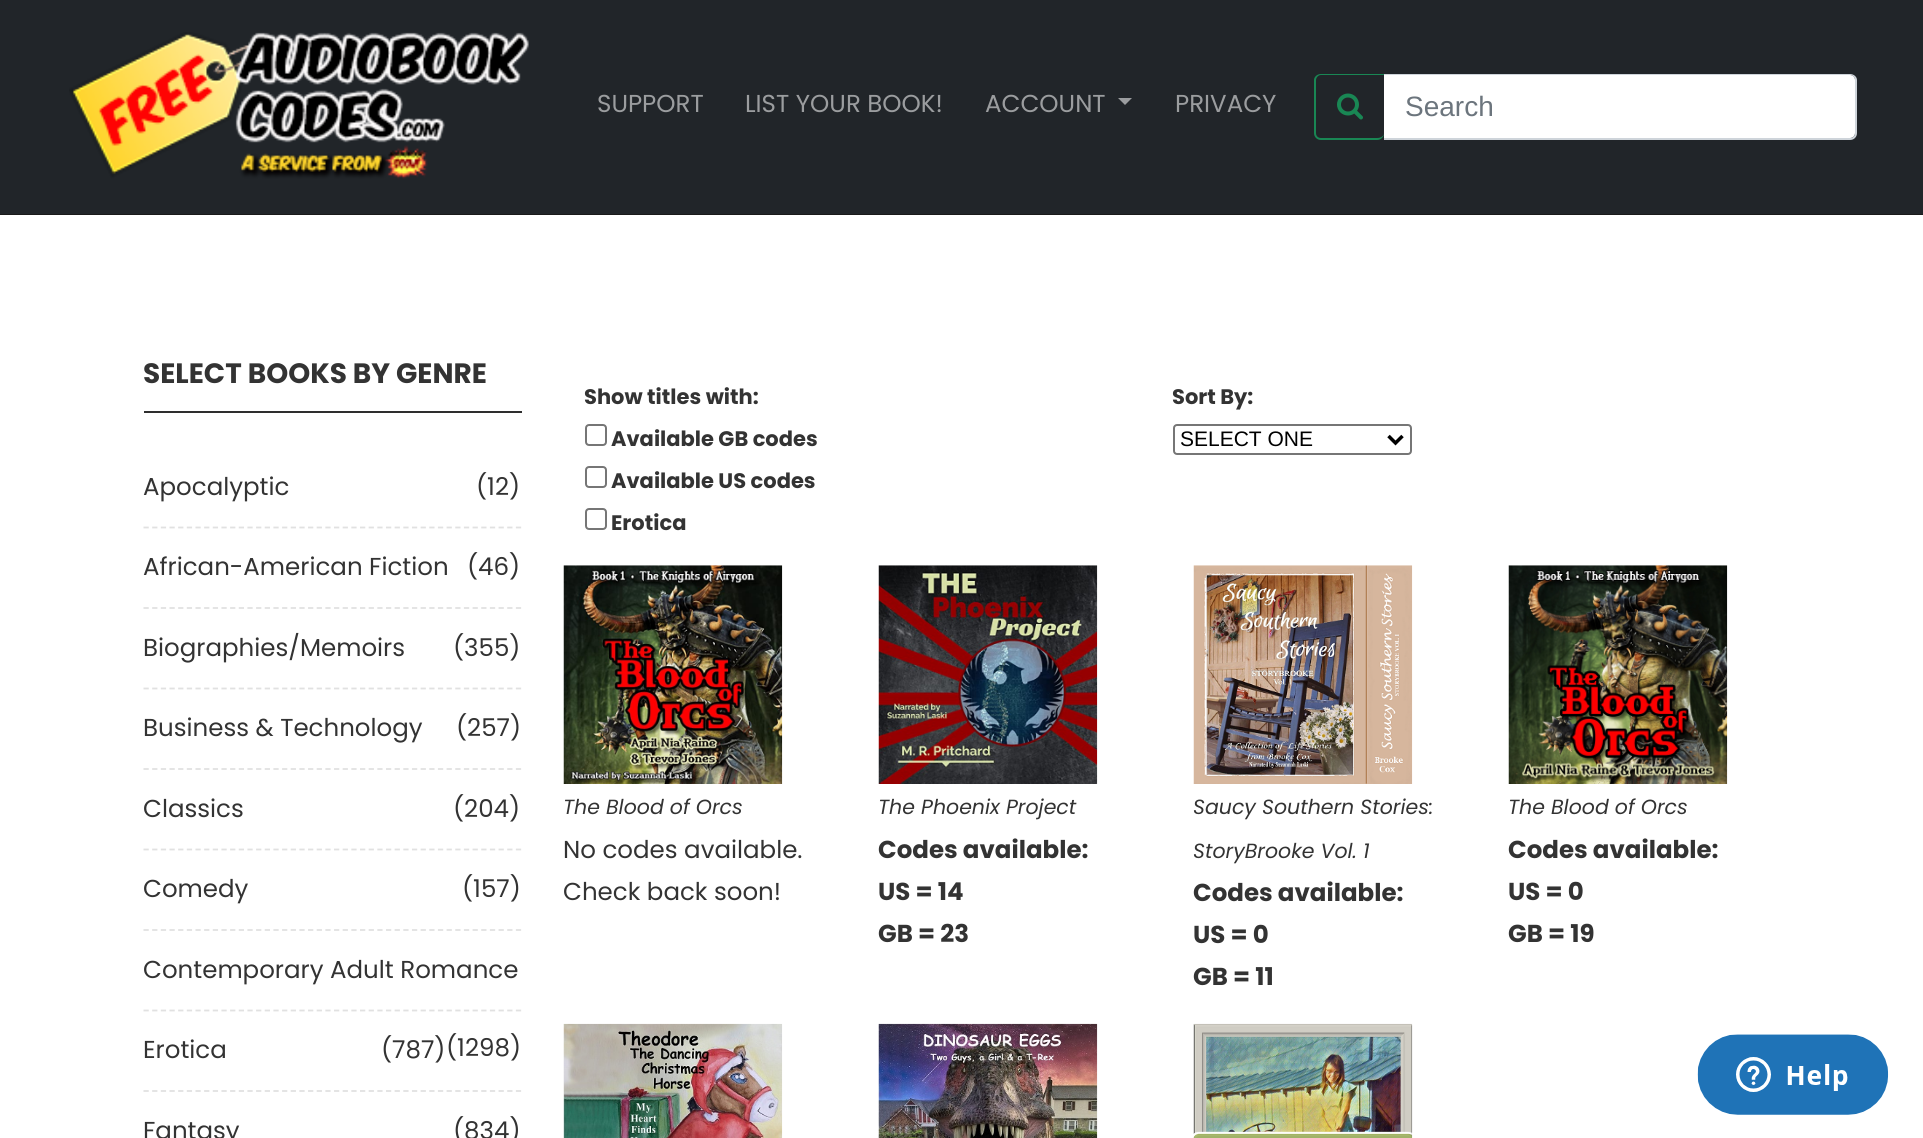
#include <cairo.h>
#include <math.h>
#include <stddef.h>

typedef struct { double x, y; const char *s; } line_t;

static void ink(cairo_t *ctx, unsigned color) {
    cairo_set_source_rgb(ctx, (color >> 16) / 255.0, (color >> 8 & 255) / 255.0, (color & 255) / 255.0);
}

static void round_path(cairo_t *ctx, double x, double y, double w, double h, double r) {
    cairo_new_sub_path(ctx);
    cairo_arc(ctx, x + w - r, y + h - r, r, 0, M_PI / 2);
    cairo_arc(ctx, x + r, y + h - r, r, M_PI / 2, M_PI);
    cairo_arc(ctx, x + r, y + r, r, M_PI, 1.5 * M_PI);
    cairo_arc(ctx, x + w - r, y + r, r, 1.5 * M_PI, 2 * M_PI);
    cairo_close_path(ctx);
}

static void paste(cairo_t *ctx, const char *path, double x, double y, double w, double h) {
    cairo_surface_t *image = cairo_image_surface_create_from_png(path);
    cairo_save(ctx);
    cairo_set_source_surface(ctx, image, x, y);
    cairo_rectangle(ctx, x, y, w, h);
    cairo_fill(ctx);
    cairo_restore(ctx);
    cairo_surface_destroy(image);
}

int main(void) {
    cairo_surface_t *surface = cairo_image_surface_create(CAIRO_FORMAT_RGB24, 1923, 1138);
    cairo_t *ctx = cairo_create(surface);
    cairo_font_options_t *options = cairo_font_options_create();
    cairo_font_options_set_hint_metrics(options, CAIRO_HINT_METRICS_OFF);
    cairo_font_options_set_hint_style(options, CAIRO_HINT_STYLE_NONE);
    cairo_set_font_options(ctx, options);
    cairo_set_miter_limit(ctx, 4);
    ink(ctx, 0xFFFFFF);
    cairo_paint(ctx);
    ink(ctx, 0x1A1A1A);
    cairo_rectangle(ctx, 0, 214, 1923, 1);
    cairo_fill(ctx);
    ink(ctx, 0x212529);
    cairo_rectangle(ctx, 0, 0, 1923, 214);
    cairo_fill(ctx);
    paste(ctx, "media/1.png", 69, 32, 460, 147);
    cairo_select_font_face(ctx, "Poppins", CAIRO_FONT_SLANT_NORMAL, CAIRO_FONT_WEIGHT_NORMAL);
    cairo_set_font_size(ctx, 24.5);
    ink(ctx, 0x9B9D9F);
    {
        static const line_t items[] = {
            {597, 112, "SUPPORT"},
            {745, 112, "LIST YOUR BOOK!"},
            {985, 112, "ACCOUNT"},
        };
        for (size_t i = 0; i < sizeof items / sizeof *items; i++) {
            cairo_move_to(ctx, items[i].x, items[i].y);
            cairo_show_text(ctx, items[i].s);
        }
    }
    cairo_new_path(ctx);
    cairo_move_to(ctx, 1118, 98);
    cairo_line_to(ctx, 1132, 98);
    cairo_line_to(ctx, 1125, 105);
    cairo_close_path(ctx);
    cairo_fill(ctx);
    cairo_move_to(ctx, 1175, 112);
    cairo_show_text(ctx, "PRIVACY");
    ink(ctx, 0x198754);
    cairo_set_fill_rule(ctx, CAIRO_FILL_RULE_EVEN_ODD);
    cairo_new_path(ctx);
    cairo_move_to(ctx, 1321, 74);
    cairo_line_to(ctx, 1384, 74);
    cairo_line_to(ctx, 1384, 133);
    cairo_curve_to(ctx, 1384, 137, 1381, 140, 1377, 140);
    cairo_line_to(ctx, 1321, 140);
    cairo_curve_to(ctx, 1317, 140, 1314, 137, 1314, 133);
    cairo_line_to(ctx, 1314, 80);
    cairo_curve_to(ctx, 1314, 77, 1317, 74, 1321, 74);
    cairo_close_path(ctx);
    cairo_move_to(ctx, 1321, 75);
    cairo_line_to(ctx, 1384, 75);
    cairo_line_to(ctx, 1384, 133);
    cairo_curve_to(ctx, 1384, 136, 1381, 138, 1377, 138);
    cairo_line_to(ctx, 1321, 138);
    cairo_curve_to(ctx, 1318, 138, 1316, 136, 1316, 133);
    cairo_line_to(ctx, 1316, 80);
    cairo_curve_to(ctx, 1316, 78, 1318, 75, 1321, 75);
    cairo_close_path(ctx);
    cairo_fill(ctx);
    paste(ctx, "media/2.png", 1337, 93, 26, 27);
    ink(ctx, 0xFFFFFF);
    cairo_new_path(ctx);
    cairo_move_to(ctx, 1384, 75);
    cairo_line_to(ctx, 1850, 75);
    cairo_curve_to(ctx, 1853, 75, 1855, 77, 1855, 80);
    cairo_line_to(ctx, 1855, 133);
    cairo_curve_to(ctx, 1855, 136, 1853, 138, 1850, 138);
    cairo_line_to(ctx, 1384, 138);
    cairo_close_path(ctx);
    cairo_fill(ctx);
    ink(ctx, 0xCED4DA);
    cairo_new_path(ctx);
    cairo_move_to(ctx, 1384, 74);
    cairo_line_to(ctx, 1850, 74);
    cairo_curve_to(ctx, 1854, 74, 1857, 77, 1857, 80);
    cairo_line_to(ctx, 1857, 133);
    cairo_curve_to(ctx, 1857, 137, 1854, 140, 1850, 140);
    cairo_line_to(ctx, 1384, 140);
    cairo_close_path(ctx);
    cairo_move_to(ctx, 1384, 75);
    cairo_line_to(ctx, 1850, 75);
    cairo_curve_to(ctx, 1853, 75, 1855, 78, 1855, 80);
    cairo_line_to(ctx, 1855, 133);
    cairo_curve_to(ctx, 1855, 136, 1853, 138, 1850, 138);
    cairo_line_to(ctx, 1384, 138);
    cairo_close_path(ctx);
    cairo_fill(ctx);
    cairo_select_font_face(ctx, "Liberation Sans", CAIRO_FONT_SLANT_NORMAL, CAIRO_FONT_WEIGHT_NORMAL);
    cairo_set_font_size(ctx, 28);
    ink(ctx, 0x6C757D);
    cairo_move_to(ctx, 1405, 116);
    cairo_show_text(ctx, "Search");
    ink(ctx, 0x2E2E2E);
    cairo_rectangle(ctx, 144, 411, 378, 2);
    cairo_fill(ctx);
    cairo_select_font_face(ctx, "Poppins", CAIRO_FONT_SLANT_NORMAL, CAIRO_FONT_WEIGHT_BOLD);
    ink(ctx, 0x333333);
    cairo_move_to(ctx, 143, 383);
    cairo_show_text(ctx, "SELECT BOOKS BY GENRE");
    cairo_new_path(ctx);
    cairo_move_to(ctx, 143.5, 527.5);
    cairo_line_to(ctx, 521.5, 527.5);
    ink(ctx, 0xE1E1E1);
    cairo_set_line_width(ctx, 1.8);
    cairo_set_dash(ctx, (double[]){5.25, 3.41}, 2, 0);
    cairo_stroke(ctx);
    cairo_select_font_face(ctx, "Poppins", CAIRO_FONT_SLANT_NORMAL, CAIRO_FONT_WEIGHT_NORMAL);
    cairo_set_font_size(ctx, 24.5);
    ink(ctx, 0x333333);
    cairo_move_to(ctx, 143, 495);
    cairo_show_text(ctx, "Apocalyptic");
    cairo_move_to(ctx, 476, 495);
    cairo_show_text(ctx, "(12)");
    cairo_new_path(ctx);
    cairo_move_to(ctx, 143.5, 608);
    cairo_line_to(ctx, 521.5, 608);
    ink(ctx, 0xE1E1E1);
    cairo_stroke(ctx);
    ink(ctx, 0x333333);
    cairo_move_to(ctx, 143, 575);
    cairo_show_text(ctx, "African-American Fiction");
    cairo_move_to(ctx, 467, 575);
    cairo_show_text(ctx, "(46)");
    cairo_new_path(ctx);
    cairo_move_to(ctx, 143.5, 688.5);
    cairo_line_to(ctx, 521.5, 688.5);
    ink(ctx, 0xE1E1E1);
    cairo_stroke(ctx);
    ink(ctx, 0x333333);
    cairo_move_to(ctx, 143, 656);
    cairo_show_text(ctx, "Biographies/Memoirs");
    cairo_move_to(ctx, 453, 656);
    cairo_show_text(ctx, "(355)");
    cairo_new_path(ctx);
    cairo_move_to(ctx, 143.5, 769);
    cairo_line_to(ctx, 521.5, 769);
    ink(ctx, 0xE1E1E1);
    cairo_stroke(ctx);
    ink(ctx, 0x333333);
    cairo_move_to(ctx, 143, 736);
    cairo_show_text(ctx, "Business & Technology");
    cairo_move_to(ctx, 456, 736);
    cairo_show_text(ctx, "(257)");
    cairo_new_path(ctx);
    cairo_move_to(ctx, 143.5, 849.5);
    cairo_line_to(ctx, 521.5, 849.5);
    ink(ctx, 0xE1E1E1);
    cairo_stroke(ctx);
    ink(ctx, 0x333333);
    cairo_move_to(ctx, 143, 817);
    cairo_show_text(ctx, "Classics");
    cairo_move_to(ctx, 453, 817);
    cairo_show_text(ctx, "(204)");
    cairo_new_path(ctx);
    cairo_move_to(ctx, 143.5, 930);
    cairo_line_to(ctx, 521.5, 930);
    ink(ctx, 0xE1E1E1);
    cairo_stroke(ctx);
    ink(ctx, 0x333333);
    cairo_move_to(ctx, 143, 897);
    cairo_show_text(ctx, "Comedy");
    cairo_move_to(ctx, 462, 897);
    cairo_show_text(ctx, "(157)");
    cairo_new_path(ctx);
    cairo_move_to(ctx, 143.5, 1010.5);
    cairo_line_to(ctx, 521.5, 1010.5);
    ink(ctx, 0xE1E1E1);
    cairo_stroke(ctx);
    ink(ctx, 0x333333);
    cairo_move_to(ctx, 143, 978);
    cairo_show_text(ctx, "Contemporary Adult Romance");
    cairo_move_to(ctx, 446, 1056);
    cairo_show_text(ctx, "(1298)");
    cairo_new_path(ctx);
    cairo_move_to(ctx, 143.5, 1091);
    cairo_line_to(ctx, 521.5, 1091);
    ink(ctx, 0xE1E1E1);
    cairo_stroke(ctx);
    ink(ctx, 0x333333);
    {
        static const line_t items[] = {
            {143, 1058, "Erotica"},
            {381, 1058, "(787)"},
            {143, 1139, "Fantasy"},
            {453, 1139, "(834)"},
        };
        for (size_t i = 0; i < sizeof items / sizeof *items; i++) {
            cairo_move_to(ctx, items[i].x, items[i].y);
            cairo_show_text(ctx, items[i].s);
        }
    }
    cairo_select_font_face(ctx, "Poppins", CAIRO_FONT_SLANT_NORMAL, CAIRO_FONT_WEIGHT_BOLD);
    cairo_set_font_size(ctx, 21);
    cairo_move_to(ctx, 584, 404);
    cairo_show_text(ctx, "Show titles with:");
    round_path(ctx, 586, 425, 20, 20, 3);
    ink(ctx, 0x767676);
    cairo_set_line_width(ctx, 2);
    cairo_set_dash(ctx, NULL, 0, 0);
    cairo_stroke(ctx);
    ink(ctx, 0x333333);
    cairo_move_to(ctx, 611, 446);
    cairo_show_text(ctx, "Available GB codes");
    round_path(ctx, 586, 467, 20, 20, 3);
    ink(ctx, 0x767676);
    cairo_stroke(ctx);
    ink(ctx, 0x333333);
    cairo_move_to(ctx, 611, 488);
    cairo_show_text(ctx, "Available US codes");
    round_path(ctx, 586, 509, 20, 20, 3);
    ink(ctx, 0x767676);
    cairo_stroke(ctx);
    ink(ctx, 0x333333);
    cairo_move_to(ctx, 611, 530);
    cairo_show_text(ctx, "Erotica");
    cairo_move_to(ctx, 1172, 404);
    cairo_show_text(ctx, "Sort By:");
    round_path(ctx, 1174, 425, 237, 29, 3);
    ink(ctx, 0x767676);
    cairo_stroke(ctx);
    cairo_new_path(ctx);
    cairo_move_to(ctx, 1388.5, 436);
    cairo_line_to(ctx, 1395.5, 443);
    cairo_line_to(ctx, 1402.5, 436);
    ink(ctx, 0x000000);
    cairo_set_line_width(ctx, 3.5);
    cairo_stroke(ctx);
    cairo_select_font_face(ctx, "Liberation Sans", CAIRO_FONT_SLANT_NORMAL, CAIRO_FONT_WEIGHT_NORMAL);
    cairo_move_to(ctx, 1180, 446);
    cairo_show_text(ctx, "SELECT ONE");
    paste(ctx, "media/3.png", 563, 565, 220, 219);
    cairo_select_font_face(ctx, "Poppins", CAIRO_FONT_SLANT_ITALIC, CAIRO_FONT_WEIGHT_NORMAL);
    cairo_set_font_size(ctx, 20.5);
    ink(ctx, 0x333333);
    cairo_move_to(ctx, 563, 814);
    cairo_show_text(ctx, "The Blood of Orcs");
    cairo_select_font_face(ctx, "Poppins", CAIRO_FONT_SLANT_NORMAL, CAIRO_FONT_WEIGHT_NORMAL);
    cairo_set_font_size(ctx, 24.5);
    cairo_move_to(ctx, 563, 858);
    cairo_show_text(ctx, "No codes available.");
    cairo_move_to(ctx, 563, 900);
    cairo_show_text(ctx, "Check back soon!");
    paste(ctx, "media/4.png", 878, 565, 220, 219);
    cairo_select_font_face(ctx, "Poppins", CAIRO_FONT_SLANT_ITALIC, CAIRO_FONT_WEIGHT_NORMAL);
    cairo_set_font_size(ctx, 20.5);
    cairo_move_to(ctx, 878, 814);
    cairo_show_text(ctx, "The Phoenix Project");
    cairo_select_font_face(ctx, "Poppins", CAIRO_FONT_SLANT_NORMAL, CAIRO_FONT_WEIGHT_BOLD);
    cairo_set_font_size(ctx, 24.5);
    {
        static const line_t items[] = {
            {878, 858, "Codes available:"},
            {878, 900, "US = 14"},
            {878, 942, "GB = 23"},
        };
        for (size_t i = 0; i < sizeof items / sizeof *items; i++) {
            cairo_move_to(ctx, items[i].x, items[i].y);
            cairo_show_text(ctx, items[i].s);
        }
    }
    paste(ctx, "media/5.png", 1193, 565, 220, 219);
    cairo_select_font_face(ctx, "Poppins", CAIRO_FONT_SLANT_ITALIC, CAIRO_FONT_WEIGHT_NORMAL);
    cairo_set_font_size(ctx, 20.5);
    cairo_move_to(ctx, 1193, 814);
    cairo_show_text(ctx, "Saucy Southern Stories:");
    cairo_move_to(ctx, 1193, 858);
    cairo_show_text(ctx, "StoryBrooke Vol. 1");
    cairo_select_font_face(ctx, "Poppins", CAIRO_FONT_SLANT_NORMAL, CAIRO_FONT_WEIGHT_BOLD);
    cairo_set_font_size(ctx, 24.5);
    {
        static const line_t items[] = {
            {1193, 901, "Codes available:"},
            {1193, 943, "US = 0"},
            {1193, 985, "GB = 11"},
        };
        for (size_t i = 0; i < sizeof items / sizeof *items; i++) {
            cairo_move_to(ctx, items[i].x, items[i].y);
            cairo_show_text(ctx, items[i].s);
        }
    }
    paste(ctx, "media/6.png", 1508, 565, 220, 219);
    cairo_select_font_face(ctx, "Poppins", CAIRO_FONT_SLANT_ITALIC, CAIRO_FONT_WEIGHT_NORMAL);
    cairo_set_font_size(ctx, 20.5);
    cairo_move_to(ctx, 1508, 814);
    cairo_show_text(ctx, "The Blood of Orcs");
    cairo_select_font_face(ctx, "Poppins", CAIRO_FONT_SLANT_NORMAL, CAIRO_FONT_WEIGHT_BOLD);
    cairo_set_font_size(ctx, 24.5);
    {
        static const line_t items[] = {
            {1508, 858, "Codes available:"},
            {1508, 900, "US = 0"},
            {1508, 942, "GB = 19"},
        };
        for (size_t i = 0; i < sizeof items / sizeof *items; i++) {
            cairo_move_to(ctx, items[i].x, items[i].y);
            cairo_show_text(ctx, items[i].s);
        }
    }
    paste(ctx, "media/7.png", 563, 1023, 220, 115);
    paste(ctx, "media/8.png", 878, 1023, 220, 115);
    paste(ctx, "media/9.png", 1193, 1023, 220, 115);
    paste(ctx, "media/10.png", 1697, 1034, 192, 81);
    cairo_surface_write_to_png(surface, "image.png");
    cairo_font_options_destroy(options);
    cairo_destroy(ctx);
    cairo_surface_destroy(surface);
    return 0;
}
